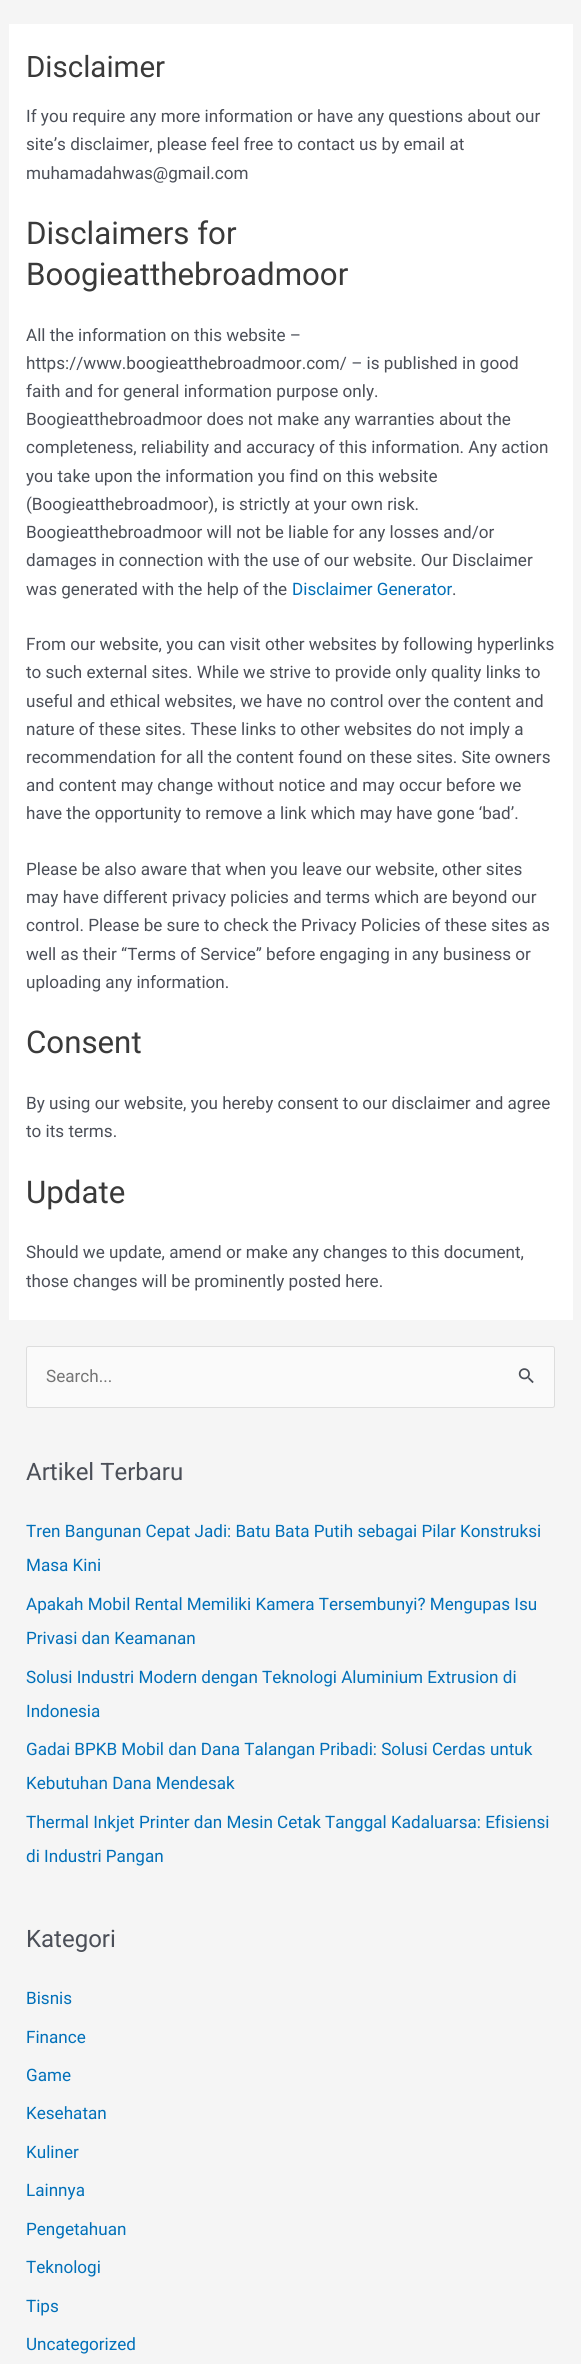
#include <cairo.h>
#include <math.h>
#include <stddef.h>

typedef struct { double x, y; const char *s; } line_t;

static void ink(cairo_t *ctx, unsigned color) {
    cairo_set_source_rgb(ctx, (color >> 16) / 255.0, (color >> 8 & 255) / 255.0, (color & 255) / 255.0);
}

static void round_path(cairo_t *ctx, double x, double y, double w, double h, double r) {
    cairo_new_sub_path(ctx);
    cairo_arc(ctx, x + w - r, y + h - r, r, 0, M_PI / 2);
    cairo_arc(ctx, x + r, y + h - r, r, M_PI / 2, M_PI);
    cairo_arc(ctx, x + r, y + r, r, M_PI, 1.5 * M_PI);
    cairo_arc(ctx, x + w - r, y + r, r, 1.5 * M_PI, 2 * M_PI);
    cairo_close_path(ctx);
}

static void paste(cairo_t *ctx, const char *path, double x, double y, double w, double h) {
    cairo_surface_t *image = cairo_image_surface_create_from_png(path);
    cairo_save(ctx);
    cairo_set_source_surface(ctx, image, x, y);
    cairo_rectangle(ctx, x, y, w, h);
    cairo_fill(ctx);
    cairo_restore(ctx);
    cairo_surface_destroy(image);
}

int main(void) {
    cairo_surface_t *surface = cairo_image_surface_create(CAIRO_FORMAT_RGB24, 581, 2364);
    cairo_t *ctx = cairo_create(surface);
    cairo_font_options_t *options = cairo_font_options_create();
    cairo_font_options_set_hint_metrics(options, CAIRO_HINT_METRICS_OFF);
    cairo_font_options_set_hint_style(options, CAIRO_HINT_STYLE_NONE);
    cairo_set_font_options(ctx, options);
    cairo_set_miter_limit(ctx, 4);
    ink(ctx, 0xF5F5F5);
    cairo_paint(ctx);
    ink(ctx, 0xFFFFFF);
    cairo_rectangle(ctx, 9, 24, 564, 1296);
    cairo_fill(ctx);
    cairo_select_font_face(ctx, "Roboto", CAIRO_FONT_SLANT_NORMAL, CAIRO_FONT_WEIGHT_NORMAL);
    cairo_set_font_size(ctx, 29.5);
    ink(ctx, 0x3A3A3A);
    cairo_move_to(ctx, 26, 77);
    cairo_show_text(ctx, "Disclaimer");
    cairo_set_font_size(ctx, 17.1);
    ink(ctx, 0x4B4F58);
    {
        static const line_t items[] = {
            {26, 122, "If you require any more information or have any questions about our"},
            {26, 150, "site’s disclaimer, please feel free to contact us by email at"},
            {26, 179, "muhamadahwas@gmail.com"},
        };
        for (size_t i = 0; i < sizeof items / sizeof *items; i++) {
            cairo_move_to(ctx, items[i].x, items[i].y);
            cairo_show_text(ctx, items[i].s);
        }
    }
    cairo_set_font_size(ctx, 31.25);
    ink(ctx, 0x3A3A3A);
    cairo_move_to(ctx, 26, 244);
    cairo_show_text(ctx, "Disclaimers for");
    cairo_move_to(ctx, 26, 285);
    cairo_show_text(ctx, "Boogieatthebroadmoor");
    cairo_set_font_size(ctx, 17.1);
    ink(ctx, 0x4B4F58);
    {
        static const line_t items[] = {
            {26, 341, "All the information on this website –"},
            {26, 369, "https://www.boogieatthebroadmoor.com/ – is published in good"},
            {26, 397, "faith and for general information purpose only."},
            {26, 425, "Boogieatthebroadmoor does not make any warranties about the"},
            {26, 453, "completeness, reliability and accuracy of this information. Any action"},
            {26, 482, "you take upon the information you find on this website"},
            {26, 510, "(Boogieatthebroadmoor), is strictly at your own risk."},
            {26, 538, "Boogieatthebroadmoor will not be liable for any losses and/or"},
            {26, 566, "damages in connection with the use of our website. Our Disclaimer"},
            {26, 595, "was generated with the help of the"},
        };
        for (size_t i = 0; i < sizeof items / sizeof *items; i++) {
            cairo_move_to(ctx, items[i].x, items[i].y);
            cairo_show_text(ctx, items[i].s);
        }
    }
    ink(ctx, 0x0170B9);
    cairo_move_to(ctx, 292, 595);
    cairo_show_text(ctx, "Disclaimer Generator");
    ink(ctx, 0x4B4F58);
    {
        static const line_t items[] = {
            {452, 595, "."},
            {26, 650, "From our website, you can visit other websites by following hyperlinks"},
            {26, 678, "to such external sites. While we strive to provide only quality links to"},
            {26, 707, "useful and ethical websites, we have no control over the content and"},
            {26, 735, "nature of these sites. These links to other websites do not imply a"},
            {26, 763, "recommendation for all the content found on these sites. Site owners"},
            {26, 791, "and content may change without notice and may occur before we"},
            {26, 819, "have the opportunity to remove a link which may have gone ‘bad’."},
            {26, 875, "Please be also aware that when you leave our website, other sites"},
            {26, 903, "may have different privacy policies and terms which are beyond our"},
            {26, 931, "control. Please be sure to check the Privacy Policies of these sites as"},
            {26, 960, "well as their “Terms of Service” before engaging in any business or"},
            {26, 988, "uploading any information."},
        };
        for (size_t i = 0; i < sizeof items / sizeof *items; i++) {
            cairo_move_to(ctx, items[i].x, items[i].y);
            cairo_show_text(ctx, items[i].s);
        }
    }
    cairo_set_font_size(ctx, 31.25);
    ink(ctx, 0x3A3A3A);
    cairo_move_to(ctx, 26, 1053);
    cairo_show_text(ctx, "Consent");
    cairo_set_font_size(ctx, 17.1);
    ink(ctx, 0x4B4F58);
    cairo_move_to(ctx, 26, 1109);
    cairo_show_text(ctx, "By using our website, you hereby consent to our disclaimer and agree");
    cairo_move_to(ctx, 26, 1137);
    cairo_show_text(ctx, "to its terms.");
    cairo_set_font_size(ctx, 31.25);
    ink(ctx, 0x3A3A3A);
    cairo_move_to(ctx, 26, 1203);
    cairo_show_text(ctx, "Update");
    cairo_set_font_size(ctx, 17.1);
    ink(ctx, 0x4B4F58);
    cairo_move_to(ctx, 26, 1258);
    cairo_show_text(ctx, "Should we update, amend or make any changes to this document,");
    cairo_move_to(ctx, 26, 1287);
    cairo_show_text(ctx, "those changes will be prominently posted here.");
    ink(ctx, 0xFAFAFA);
    round_path(ctx, 26.5, 1346.5, 528, 61, 2);
    cairo_fill_preserve(ctx);
    ink(ctx, 0xDDDDDD);
    cairo_set_line_width(ctx, 1);
    cairo_stroke(ctx);
    ink(ctx, 0x757575);
    cairo_move_to(ctx, 46, 1382);
    cairo_show_text(ctx, "Search...");
    paste(ctx, "media/1.png", 518, 1368, 16, 16);
    cairo_set_font_size(ctx, 24);
    ink(ctx, 0x4B4F58);
    cairo_move_to(ctx, 26, 1480);
    cairo_show_text(ctx, "Artikel Terbaru");
    cairo_set_font_size(ctx, 17.1);
    ink(ctx, 0x0170B9);
    {
        static const line_t items[] = {
            {26, 1537, "Tren Bangunan Cepat Jadi: Batu Bata Putih sebagai Pilar Konstruksi"},
            {26, 1571, "Masa Kini"},
            {26, 1610, "Apakah Mobil Rental Memiliki Kamera Tersembunyi? Mengupas Isu"},
            {26, 1644, "Privasi dan Keamanan"},
            {26, 1683, "Solusi Industri Modern dengan Teknologi Aluminium Extrusion di"},
            {26, 1717, "Indonesia"},
            {26, 1755, "Gadai BPKB Mobil dan Dana Talangan Pribadi: Solusi Cerdas untuk"},
            {26, 1789, "Kebutuhan Dana Mendesak"},
            {26, 1828, "Thermal Inkjet Printer dan Mesin Cetak Tanggal Kadaluarsa: Efisiensi"},
            {26, 1862, "di Industri Pangan"},
        };
        for (size_t i = 0; i < sizeof items / sizeof *items; i++) {
            cairo_move_to(ctx, items[i].x, items[i].y);
            cairo_show_text(ctx, items[i].s);
        }
    }
    cairo_set_font_size(ctx, 24);
    ink(ctx, 0x4B4F58);
    cairo_move_to(ctx, 26, 1947);
    cairo_show_text(ctx, "Kategori");
    cairo_set_font_size(ctx, 17.1);
    ink(ctx, 0x0170B9);
    {
        static const line_t items[] = {
            {26, 2004, "Bisnis"},
            {26, 2043, "Finance"},
            {26, 2081, "Game"},
            {26, 2119, "Kesehatan"},
            {26, 2158, "Kuliner"},
            {26, 2196, "Lainnya"},
            {26, 2235, "Pengetahuan"},
            {26, 2273, "Teknologi"},
            {26, 2312, "Tips"},
            {26, 2350, "Uncategorized"},
        };
        for (size_t i = 0; i < sizeof items / sizeof *items; i++) {
            cairo_move_to(ctx, items[i].x, items[i].y);
            cairo_show_text(ctx, items[i].s);
        }
    }
    cairo_surface_write_to_png(surface, "image.png");
    cairo_font_options_destroy(options);
    cairo_destroy(ctx);
    cairo_surface_destroy(surface);
    return 0;
}
